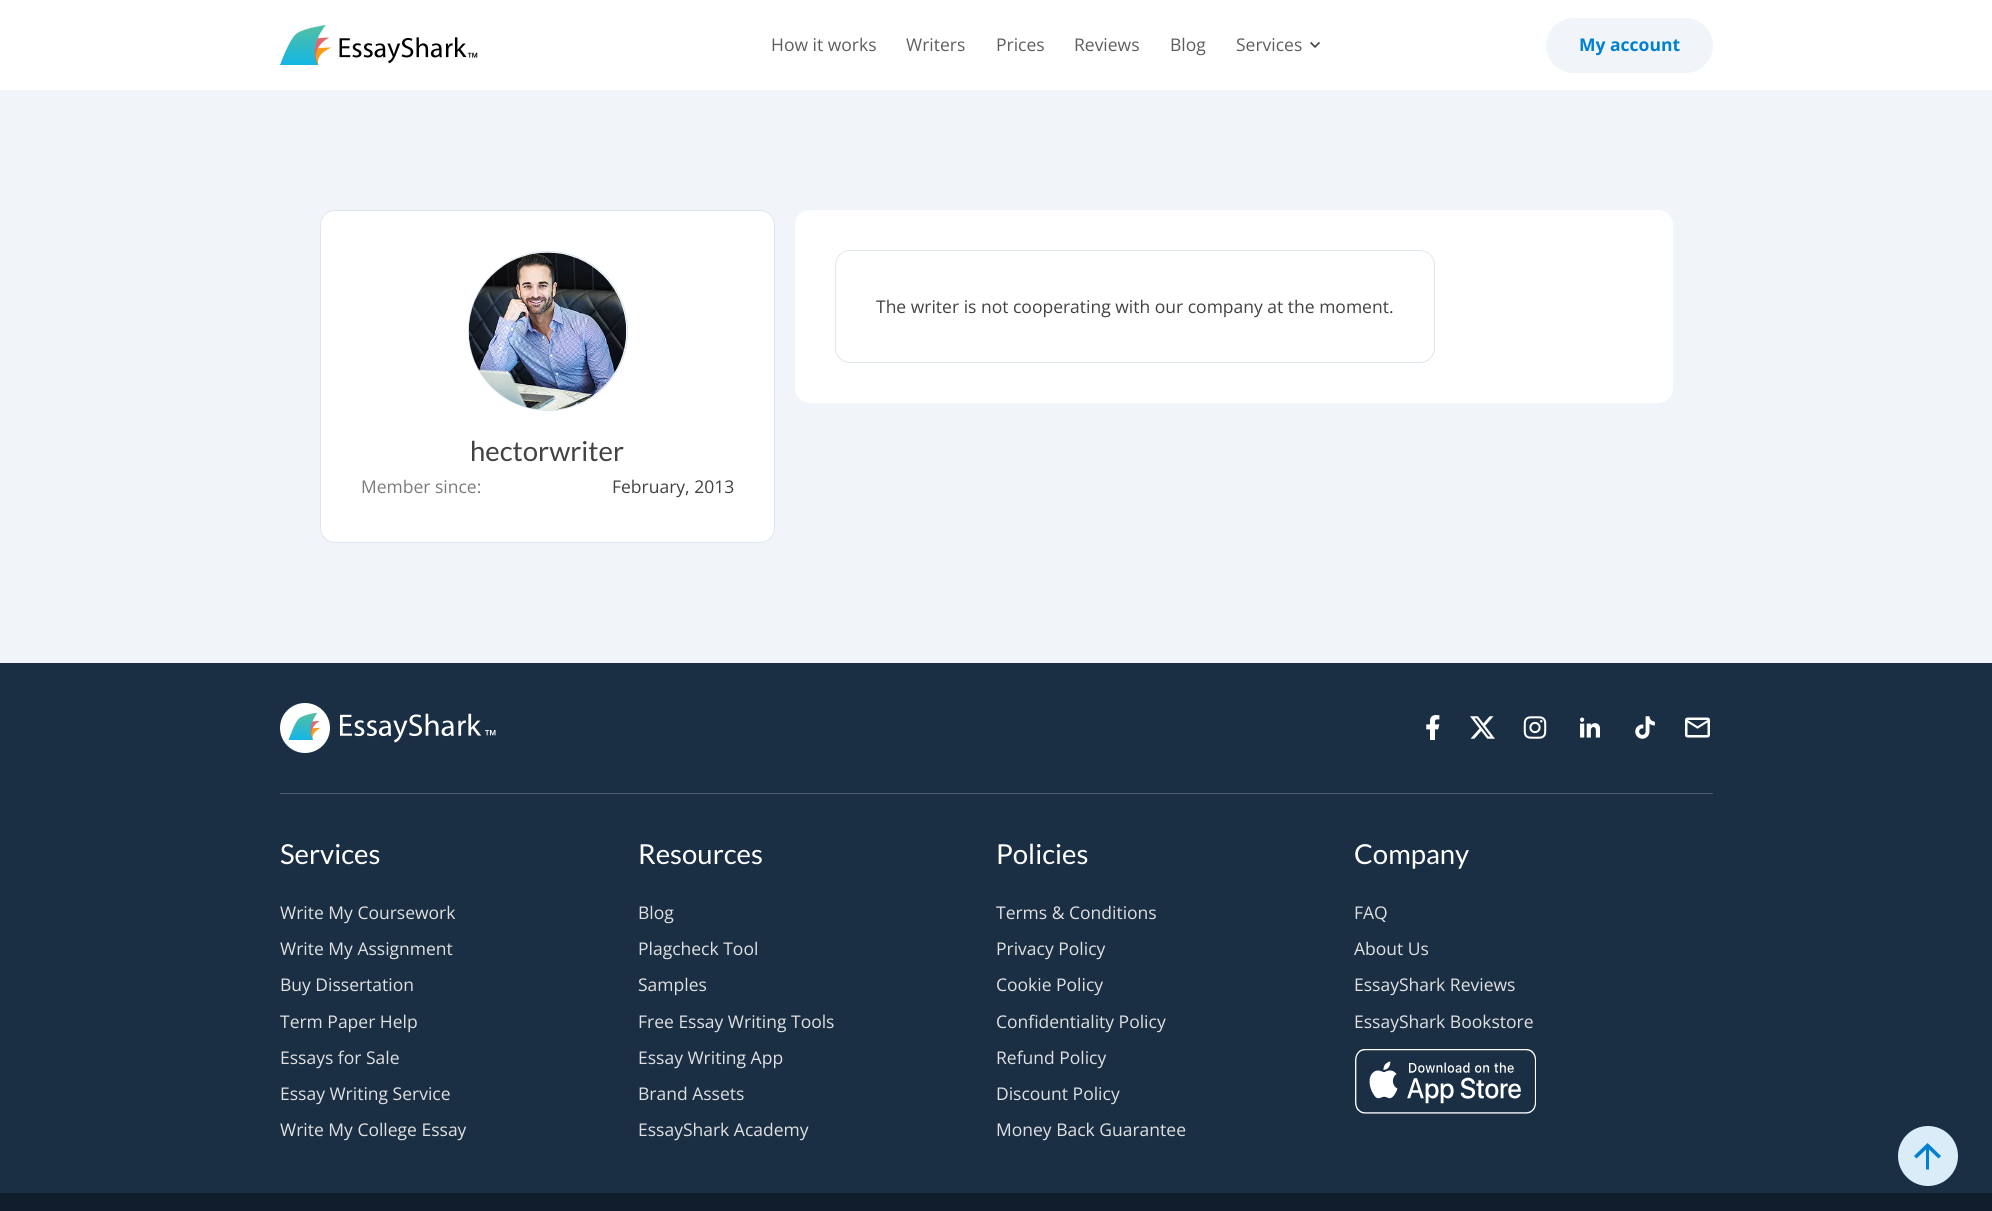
#include <cairo.h>
#include <math.h>
#include <stddef.h>

typedef struct { double x, y; const char *s; } line_t;

static void ink(cairo_t *ctx, unsigned color) {
    cairo_set_source_rgb(ctx, (color >> 16) / 255.0, (color >> 8 & 255) / 255.0, (color & 255) / 255.0);
}

static void round_path(cairo_t *ctx, double x, double y, double w, double h, double r) {
    cairo_new_sub_path(ctx);
    cairo_arc(ctx, x + w - r, y + h - r, r, 0, M_PI / 2);
    cairo_arc(ctx, x + r, y + h - r, r, M_PI / 2, M_PI);
    cairo_arc(ctx, x + r, y + r, r, M_PI, 1.5 * M_PI);
    cairo_arc(ctx, x + w - r, y + r, r, 1.5 * M_PI, 2 * M_PI);
    cairo_close_path(ctx);
}

static void paste(cairo_t *ctx, const char *path, double x, double y, double w, double h) {
    cairo_surface_t *image = cairo_image_surface_create_from_png(path);
    cairo_save(ctx);
    cairo_set_source_surface(ctx, image, x, y);
    cairo_rectangle(ctx, x, y, w, h);
    cairo_fill(ctx);
    cairo_restore(ctx);
    cairo_surface_destroy(image);
}

int main(void) {
    cairo_surface_t *surface = cairo_image_surface_create(CAIRO_FORMAT_RGB24, 1992, 1211);
    cairo_t *ctx = cairo_create(surface);
    cairo_font_options_t *options = cairo_font_options_create();
    cairo_font_options_set_hint_metrics(options, CAIRO_HINT_METRICS_OFF);
    cairo_font_options_set_hint_style(options, CAIRO_HINT_STYLE_NONE);
    cairo_set_font_options(ctx, options);
    cairo_set_miter_limit(ctx, 4);
    ink(ctx, 0xFFFFFF);
    cairo_paint(ctx);
    paste(ctx, "media/1.png", 280, 25, 198, 40);
    cairo_select_font_face(ctx, "Open Sans", CAIRO_FONT_SLANT_NORMAL, CAIRO_FONT_WEIGHT_NORMAL);
    cairo_set_font_size(ctx, 17.5);
    ink(ctx, 0x5E5E5E);
    {
        static const line_t items[] = {
            {771, 51, "How it works"},
            {906, 51, "Writers"},
            {996, 51, "Prices"},
            {1074, 51, "Reviews"},
            {1170, 51, "Blog"},
            {1236, 51, "Services"},
        };
        for (size_t i = 0; i < sizeof items / sizeof *items; i++) {
            cairo_move_to(ctx, items[i].x, items[i].y);
            cairo_show_text(ctx, items[i].s);
        }
    }
    paste(ctx, "media/2.png", 1310, 41, 10, 7);
    ink(ctx, 0xF1F5F9);
    round_path(ctx, 1547.5, 19.5, 164, 52, 26);
    cairo_fill_preserve(ctx);
    cairo_set_line_width(ctx, 3);
    cairo_stroke(ctx);
    cairo_select_font_face(ctx, "Open Sans", CAIRO_FONT_SLANT_NORMAL, CAIRO_FONT_WEIGHT_BOLD);
    ink(ctx, 0x0080D1);
    cairo_move_to(ctx, 1579, 51);
    cairo_show_text(ctx, "My account");
    ink(ctx, 0xF1F5F9);
    cairo_rectangle(ctx, 0, 90, 1992, 573);
    cairo_fill(ctx);
    ink(ctx, 0xFFFFFF);
    round_path(ctx, 795, 210, 878, 193, 15);
    cairo_fill(ctx);
    round_path(ctx, 835.5, 250.5, 599, 112, 14.5);
    ink(ctx, 0xDDE6EF);
    cairo_set_line_width(ctx, 1);
    cairo_stroke(ctx);
    cairo_select_font_face(ctx, "Open Sans", CAIRO_FONT_SLANT_NORMAL, CAIRO_FONT_WEIGHT_NORMAL);
    ink(ctx, 0x424242);
    cairo_move_to(ctx, 876, 313);
    cairo_show_text(ctx, "The writer is not cooperating with our company at the moment.");
    ink(ctx, 0xFFFFFF);
    round_path(ctx, 320.5, 210.5, 454, 332, 14.5);
    cairo_fill_preserve(ctx);
    ink(ctx, 0xDDE6EF);
    cairo_stroke(ctx);
    cairo_arc(ctx, 548, 331, 79.5, 0, 2 * M_PI);
    cairo_stroke(ctx);
    paste(ctx, "media/3.png", 468, 252, 159, 158);
    cairo_select_font_face(ctx, "Lato", CAIRO_FONT_SLANT_NORMAL, CAIRO_FONT_WEIGHT_NORMAL);
    cairo_set_font_size(ctx, 27.5);
    ink(ctx, 0x424242);
    cairo_move_to(ctx, 470, 461);
    cairo_show_text(ctx, "hectorwriter");
    cairo_select_font_face(ctx, "Open Sans", CAIRO_FONT_SLANT_NORMAL, CAIRO_FONT_WEIGHT_NORMAL);
    cairo_set_font_size(ctx, 17.5);
    ink(ctx, 0x7B7B7B);
    cairo_move_to(ctx, 361, 493);
    cairo_show_text(ctx, "Member since:");
    ink(ctx, 0x424242);
    cairo_move_to(ctx, 612, 493);
    cairo_show_text(ctx, "February, 2013");
    ink(ctx, 0x1A2E44);
    cairo_rectangle(ctx, 0, 663, 1992, 530);
    cairo_fill(ctx);
    ink(ctx, 0x505E6D);
    cairo_rectangle(ctx, 280, 793, 1433, 1);
    cairo_fill(ctx);
    paste(ctx, "media/4.png", 280, 703, 216, 50);
    paste(ctx, "media/5.png", 1426, 715, 14, 25);
    paste(ctx, "media/6.png", 1470, 716, 25, 23);
    paste(ctx, "media/7.png", 1523, 716, 24, 23);
    paste(ctx, "media/8.png", 1580, 717, 20, 21);
    paste(ctx, "media/9.png", 1635, 716, 20, 23);
    paste(ctx, "media/10.png", 1685, 717, 25, 21);
    cairo_select_font_face(ctx, "Lato", CAIRO_FONT_SLANT_NORMAL, CAIRO_FONT_WEIGHT_NORMAL);
    cairo_set_font_size(ctx, 27.5);
    ink(ctx, 0xFFFFFF);
    cairo_move_to(ctx, 280, 864);
    cairo_show_text(ctx, "Services");
    cairo_select_font_face(ctx, "Open Sans", CAIRO_FONT_SLANT_NORMAL, CAIRO_FONT_WEIGHT_NORMAL);
    cairo_set_font_size(ctx, 17.5);
    ink(ctx, 0xE1E1E1);
    {
        static const line_t items[] = {
            {280, 919, "Write My Coursework"},
            {280, 955, "Write My Assignment"},
            {280, 991, "Buy Dissertation"},
            {280, 1028, "Term Paper Help"},
            {280, 1064, "Essays for Sale"},
            {280, 1100, "Essay Writing Service"},
            {280, 1136, "Write My College Essay"},
        };
        for (size_t i = 0; i < sizeof items / sizeof *items; i++) {
            cairo_move_to(ctx, items[i].x, items[i].y);
            cairo_show_text(ctx, items[i].s);
        }
    }
    cairo_select_font_face(ctx, "Lato", CAIRO_FONT_SLANT_NORMAL, CAIRO_FONT_WEIGHT_NORMAL);
    cairo_set_font_size(ctx, 27.5);
    ink(ctx, 0xFFFFFF);
    cairo_move_to(ctx, 638, 864);
    cairo_show_text(ctx, "Resources");
    cairo_select_font_face(ctx, "Open Sans", CAIRO_FONT_SLANT_NORMAL, CAIRO_FONT_WEIGHT_NORMAL);
    cairo_set_font_size(ctx, 17.5);
    ink(ctx, 0xE1E1E1);
    {
        static const line_t items[] = {
            {638, 919, "Blog"},
            {638, 955, "Plagcheck Tool"},
            {638, 991, "Samples"},
            {638, 1028, "Free Essay Writing Tools"},
            {638, 1064, "Essay Writing App"},
            {638, 1100, "Brand Assets"},
            {638, 1136, "EssayShark Academy"},
        };
        for (size_t i = 0; i < sizeof items / sizeof *items; i++) {
            cairo_move_to(ctx, items[i].x, items[i].y);
            cairo_show_text(ctx, items[i].s);
        }
    }
    cairo_select_font_face(ctx, "Lato", CAIRO_FONT_SLANT_NORMAL, CAIRO_FONT_WEIGHT_NORMAL);
    cairo_set_font_size(ctx, 27.5);
    ink(ctx, 0xFFFFFF);
    cairo_move_to(ctx, 996, 864);
    cairo_show_text(ctx, "Policies");
    cairo_select_font_face(ctx, "Open Sans", CAIRO_FONT_SLANT_NORMAL, CAIRO_FONT_WEIGHT_NORMAL);
    cairo_set_font_size(ctx, 17.5);
    ink(ctx, 0xE1E1E1);
    {
        static const line_t items[] = {
            {996, 919, "Terms & Conditions"},
            {996, 955, "Privacy Policy"},
            {996, 991, "Cookie Policy"},
            {996, 1028, "Confidentiality Policy"},
            {996, 1064, "Refund Policy"},
            {996, 1100, "Discount Policy"},
            {996, 1136, "Money Back Guarantee"},
        };
        for (size_t i = 0; i < sizeof items / sizeof *items; i++) {
            cairo_move_to(ctx, items[i].x, items[i].y);
            cairo_show_text(ctx, items[i].s);
        }
    }
    cairo_select_font_face(ctx, "Lato", CAIRO_FONT_SLANT_NORMAL, CAIRO_FONT_WEIGHT_NORMAL);
    cairo_set_font_size(ctx, 27.5);
    ink(ctx, 0xFFFFFF);
    cairo_move_to(ctx, 1354, 864);
    cairo_show_text(ctx, "Company");
    cairo_select_font_face(ctx, "Open Sans", CAIRO_FONT_SLANT_NORMAL, CAIRO_FONT_WEIGHT_NORMAL);
    cairo_set_font_size(ctx, 17.5);
    ink(ctx, 0xE1E1E1);
    {
        static const line_t items[] = {
            {1354, 919, "FAQ"},
            {1354, 955, "About Us"},
            {1354, 991, "EssayShark Reviews"},
            {1354, 1028, "EssayShark Bookstore"},
        };
        for (size_t i = 0; i < sizeof items / sizeof *items; i++) {
            cairo_move_to(ctx, items[i].x, items[i].y);
            cairo_show_text(ctx, items[i].s);
        }
    }
    paste(ctx, "media/11.png", 1355, 1049, 181, 65);
    ink(ctx, 0xD9ECF8);
    cairo_arc(ctx, 1928, 1156, 30, 0, 2 * M_PI);
    cairo_fill(ctx);
    ink(ctx, 0x0080D1);
    cairo_new_path(ctx);
    cairo_move_to(ctx, 1914, 1156);
    cairo_line_to(ctx, 1916.5, 1158.5);
    cairo_line_to(ctx, 1926, 1149.5);
    cairo_line_to(ctx, 1926, 1169.5);
    cairo_line_to(ctx, 1929, 1169.5);
    cairo_line_to(ctx, 1929, 1149.5);
    cairo_line_to(ctx, 1938.5, 1158.5);
    cairo_line_to(ctx, 1941, 1156);
    cairo_line_to(ctx, 1927.5, 1143);
    cairo_close_path(ctx);
    cairo_fill(ctx);
    ink(ctx, 0x0F1D2D);
    cairo_rectangle(ctx, 0, 1193, 1992, 18);
    cairo_fill(ctx);
    cairo_surface_write_to_png(surface, "image.png");
    cairo_font_options_destroy(options);
    cairo_destroy(ctx);
    cairo_surface_destroy(surface);
    return 0;
}
